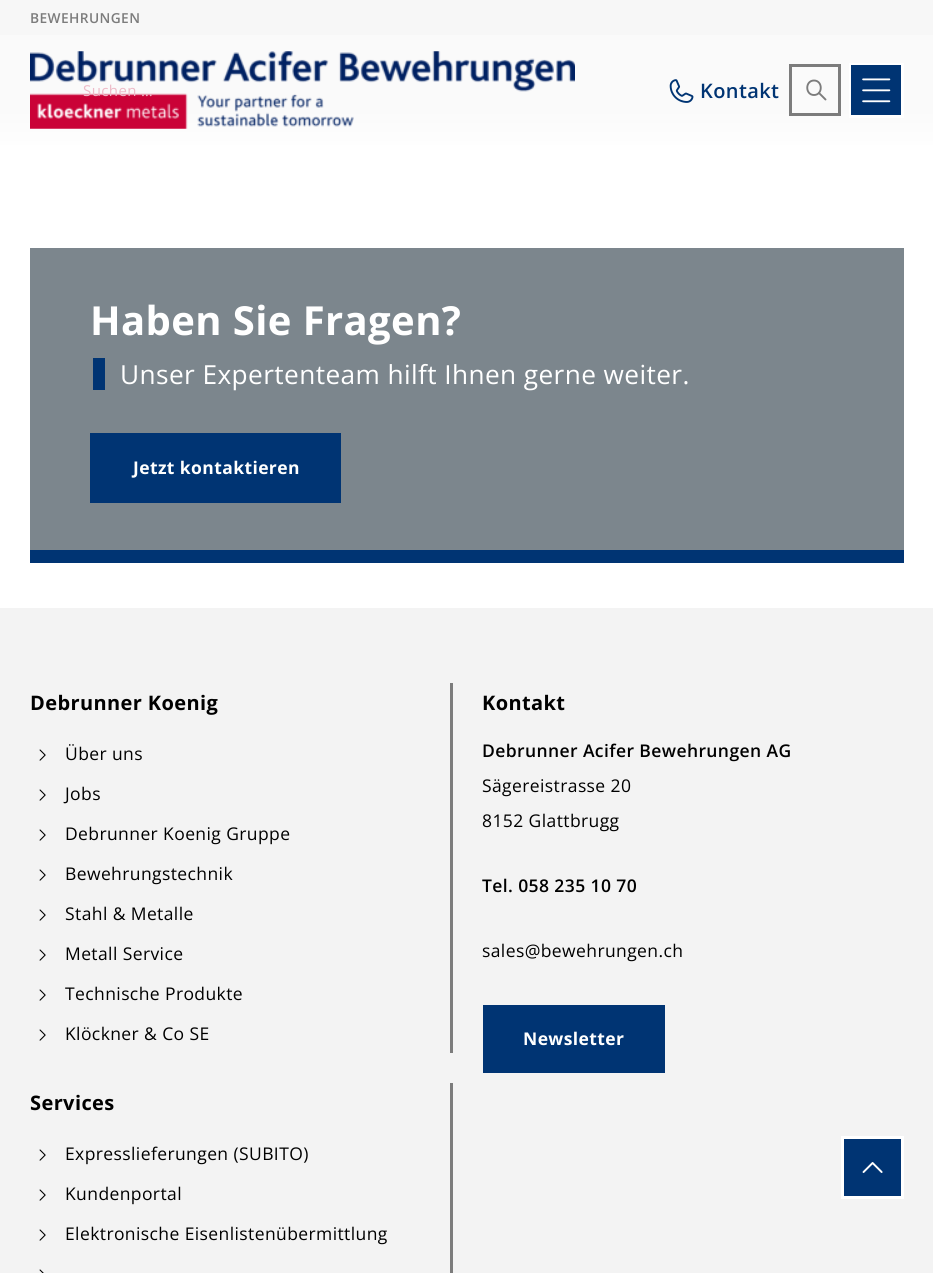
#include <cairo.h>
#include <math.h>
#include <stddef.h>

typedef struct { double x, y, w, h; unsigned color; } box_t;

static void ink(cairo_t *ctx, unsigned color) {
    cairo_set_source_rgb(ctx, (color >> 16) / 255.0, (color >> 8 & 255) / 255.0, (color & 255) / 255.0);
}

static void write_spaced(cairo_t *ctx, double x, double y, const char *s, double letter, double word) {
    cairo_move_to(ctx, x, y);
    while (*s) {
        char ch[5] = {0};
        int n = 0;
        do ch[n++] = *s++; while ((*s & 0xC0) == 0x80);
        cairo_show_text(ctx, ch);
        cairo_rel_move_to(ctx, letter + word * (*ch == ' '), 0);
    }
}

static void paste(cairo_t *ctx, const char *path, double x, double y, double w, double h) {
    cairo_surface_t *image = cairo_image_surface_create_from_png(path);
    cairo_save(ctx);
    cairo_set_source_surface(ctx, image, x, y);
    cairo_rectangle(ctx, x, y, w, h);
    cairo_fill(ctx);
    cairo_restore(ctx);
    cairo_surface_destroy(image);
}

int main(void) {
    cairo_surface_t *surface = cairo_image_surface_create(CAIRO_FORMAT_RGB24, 933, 1273);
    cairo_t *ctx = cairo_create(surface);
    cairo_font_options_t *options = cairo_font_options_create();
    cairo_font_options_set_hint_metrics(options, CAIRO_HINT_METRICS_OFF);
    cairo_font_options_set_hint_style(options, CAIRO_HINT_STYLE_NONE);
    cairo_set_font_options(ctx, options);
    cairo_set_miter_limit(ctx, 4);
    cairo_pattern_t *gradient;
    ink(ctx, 0xF3F3F3);
    cairo_paint(ctx);
    ink(ctx, 0xF7F7F7);
    cairo_rectangle(ctx, 0, 0, 933, 35);
    cairo_fill(ctx);
    cairo_select_font_face(ctx, "Open Sans SemiBold", CAIRO_FONT_SLANT_NORMAL, CAIRO_FONT_WEIGHT_NORMAL);
    cairo_set_font_size(ctx, 13.75);
    ink(ctx, 0x7C7C7C);
    write_spaced(ctx, 30, 23, "BEWEHRUNGEN", 0.4, 0);
    ink(ctx, 0xFAFAFA);
    cairo_rectangle(ctx, 0, 35, 933, 74);
    cairo_fill(ctx);
    gradient = cairo_pattern_create_linear(467, 155, 467, 109);
    cairo_pattern_add_color_stop_rgba(gradient, 0, 1, 1, 1, 1);
    cairo_pattern_add_color_stop_rgba(gradient, 1, 0.98, 0.98, 0.98, 1);
    cairo_set_source(ctx, gradient);
    cairo_pattern_destroy(gradient);
    cairo_rectangle(ctx, 0, 109, 933, 36);
    cairo_fill(ctx);
    paste(ctx, "media/1.png", 30, 51, 545, 78);
    cairo_select_font_face(ctx, "Open Sans", CAIRO_FONT_SLANT_NORMAL, CAIRO_FONT_WEIGHT_NORMAL);
    cairo_set_font_size(ctx, 15);
    ink(ctx, 0xEEBBC8);
    write_spaced(ctx, 83, 96, "Suchen …", 0.4, 0);
    cairo_rectangle(ctx, 790.5, 65.5, 49, 49);
    ink(ctx, 0x7C7C7C);
    cairo_set_line_width(ctx, 3);
    cairo_stroke(ctx);
    cairo_new_path(ctx);
    cairo_move_to(ctx, 819, 93);
    cairo_line_to(ctx, 825.5, 99.5);
    cairo_set_line_width(ctx, 1.9);
    cairo_set_line_cap(ctx, CAIRO_LINE_CAP_ROUND);
    cairo_stroke(ctx);
    cairo_new_path(ctx);
    cairo_move_to(ctx, 814, 95);
    cairo_curve_to(ctx, 823, 95, 823, 80.5, 814, 80.5);
    cairo_curve_to(ctx, 805, 80.5, 805, 95, 814, 95);
    cairo_close_path(ctx);
    cairo_set_line_cap(ctx, CAIRO_LINE_CAP_BUTT);
    cairo_stroke(ctx);
    ink(ctx, 0xFFFFFF);
    cairo_rectangle(ctx, 849, 63, 55, 55);
    cairo_fill(ctx);
    ink(ctx, 0x003473);
    cairo_rectangle(ctx, 851, 65, 50, 50);
    cairo_fill(ctx);
    paste(ctx, "media/2.png", 862, 78, 29, 25);
    paste(ctx, "media/3.png", 669, 79, 25, 24);
    cairo_select_font_face(ctx, "Open Sans SemiBold", CAIRO_FONT_SLANT_NORMAL, CAIRO_FONT_WEIGHT_NORMAL);
    cairo_set_font_size(ctx, 20);
    write_spaced(ctx, 700, 98, "Kontakt", 0.4, 0);
    {
        static const box_t items[] = {
            {0, 145, 933, 463, 0xFFFFFF},
            {30, 550, 874, 13, 0x003473},
            {30, 248, 874, 302, 0x7C868D},
        };
        for (size_t i = 0; i < sizeof items / sizeof *items; i++) {
            ink(ctx, items[i].color);
            cairo_rectangle(ctx, items[i].x, items[i].y, items[i].w, items[i].h);
            cairo_fill(ctx);
        }
    }
    cairo_select_font_face(ctx, "Open Sans", CAIRO_FONT_SLANT_NORMAL, CAIRO_FONT_WEIGHT_BOLD);
    cairo_set_font_size(ctx, 40);
    ink(ctx, 0xFFFFFF);
    write_spaced(ctx, 90, 335, "Haben Sie Fragen?", 0.4, 0);
    ink(ctx, 0x003473);
    cairo_rectangle(ctx, 93, 358, 12, 32);
    cairo_fill(ctx);
    cairo_select_font_face(ctx, "Open Sans", CAIRO_FONT_SLANT_NORMAL, CAIRO_FONT_WEIGHT_NORMAL);
    cairo_set_font_size(ctx, 26.25);
    ink(ctx, 0xFFFFFF);
    write_spaced(ctx, 120, 384, "Unser Expertenteam hilft Ihnen gerne weiter.", 0.4, 0);
    ink(ctx, 0x003473);
    cairo_rectangle(ctx, 90, 433, 251, 70);
    cairo_fill(ctx);
    cairo_select_font_face(ctx, "Open Sans", CAIRO_FONT_SLANT_NORMAL, CAIRO_FONT_WEIGHT_BOLD);
    cairo_set_font_size(ctx, 17.5);
    ink(ctx, 0xFFFFFF);
    write_spaced(ctx, 133, 474, "Jetzt kontaktieren", 0.4, 0);
    ink(ctx, 0x7C7C7C);
    cairo_rectangle(ctx, 450, 683, 3, 370);
    cairo_fill(ctx);
    cairo_set_font_size(ctx, 20);
    ink(ctx, 0x000000);
    write_spaced(ctx, 30, 710, "Debrunner Koenig", 0.4, 0);
    paste(ctx, "media/4.png", 39, 749, 7, 12);
    cairo_select_font_face(ctx, "Open Sans", CAIRO_FONT_SLANT_NORMAL, CAIRO_FONT_WEIGHT_NORMAL);
    cairo_set_font_size(ctx, 17.5);
    write_spaced(ctx, 65, 760, "Über uns", 0.4, 0);
    paste(ctx, "media/4.png", 39, 789, 7, 12);
    write_spaced(ctx, 65, 800, "Jobs", 0.4, 0);
    paste(ctx, "media/4.png", 39, 829, 7, 12);
    write_spaced(ctx, 65, 840, "Debrunner Koenig Gruppe", 0.4, 0);
    paste(ctx, "media/4.png", 39, 869, 7, 12);
    write_spaced(ctx, 65, 880, "Bewehrungstechnik", 0.4, 0);
    paste(ctx, "media/4.png", 39, 909, 7, 12);
    write_spaced(ctx, 65, 920, "Stahl & Metalle", 0.4, 0);
    paste(ctx, "media/4.png", 39, 949, 7, 12);
    write_spaced(ctx, 65, 960, "Metall Service", 0.4, 0);
    paste(ctx, "media/4.png", 39, 989, 7, 12);
    write_spaced(ctx, 65, 1000, "Technische Produkte", 0.4, 0);
    paste(ctx, "media/4.png", 39, 1029, 7, 12);
    write_spaced(ctx, 65, 1040, "Klöckner & Co SE", 0.4, 0);
    ink(ctx, 0x7C7C7C);
    cairo_rectangle(ctx, 450, 1083, 3, 190);
    cairo_fill(ctx);
    cairo_select_font_face(ctx, "Open Sans", CAIRO_FONT_SLANT_NORMAL, CAIRO_FONT_WEIGHT_BOLD);
    cairo_set_font_size(ctx, 20);
    ink(ctx, 0x000000);
    write_spaced(ctx, 30, 1110, "Services", 0.4, 0);
    paste(ctx, "media/4.png", 39, 1149, 7, 12);
    cairo_select_font_face(ctx, "Open Sans", CAIRO_FONT_SLANT_NORMAL, CAIRO_FONT_WEIGHT_NORMAL);
    cairo_set_font_size(ctx, 17.5);
    write_spaced(ctx, 65, 1160, "Expresslieferungen (SUBITO)", 0.4, 0);
    paste(ctx, "media/4.png", 39, 1189, 7, 12);
    write_spaced(ctx, 65, 1200, "Kundenportal", 0.4, 0);
    paste(ctx, "media/4.png", 39, 1229, 7, 12);
    write_spaced(ctx, 65, 1240, "Elektronische Eisenlistenübermittlung", 0.4, 0);
    paste(ctx, "media/5.png", 39, 1269, 5, 4);
    cairo_select_font_face(ctx, "Open Sans", CAIRO_FONT_SLANT_NORMAL, CAIRO_FONT_WEIGHT_BOLD);
    cairo_set_font_size(ctx, 20);
    write_spaced(ctx, 482, 710, "Kontakt", 0.4, 0);
    cairo_select_font_face(ctx, "Open Sans SemiBold", CAIRO_FONT_SLANT_NORMAL, CAIRO_FONT_WEIGHT_NORMAL);
    cairo_set_font_size(ctx, 17.5);
    write_spaced(ctx, 482, 757, "Debrunner Acifer Bewehrungen AG", 0.4, 0);
    cairo_select_font_face(ctx, "Open Sans", CAIRO_FONT_SLANT_NORMAL, CAIRO_FONT_WEIGHT_NORMAL);
    write_spaced(ctx, 482, 792, "Sägereistrasse 20", 0.4, 0);
    write_spaced(ctx, 482, 827, "8152 Glattbrugg", 0.4, 0);
    cairo_select_font_face(ctx, "Open Sans SemiBold", CAIRO_FONT_SLANT_NORMAL, CAIRO_FONT_WEIGHT_NORMAL);
    write_spaced(ctx, 482, 892, "Tel. 058 235 10 70", 0.4, 0);
    cairo_select_font_face(ctx, "Open Sans", CAIRO_FONT_SLANT_NORMAL, CAIRO_FONT_WEIGHT_NORMAL);
    write_spaced(ctx, 482, 957, "sales@bewehrungen.ch", 0.4, 0);
    ink(ctx, 0x003473);
    cairo_rectangle(ctx, 483, 1005, 182, 68);
    cairo_fill(ctx);
    cairo_select_font_face(ctx, "Open Sans", CAIRO_FONT_SLANT_NORMAL, CAIRO_FONT_WEIGHT_BOLD);
    ink(ctx, 0xFFFFFF);
    write_spaced(ctx, 523, 1045, "Newsletter", 0.4, 0);
    ink(ctx, 0x003473);
    cairo_rectangle(ctx, 842.5, 1137.5, 60, 60);
    cairo_fill_preserve(ctx);
    ink(ctx, 0xFFFFFF);
    cairo_set_line_width(ctx, 3);
    cairo_stroke(ctx);
    paste(ctx, "media/6.png", 862, 1162, 21, 11);
    cairo_surface_write_to_png(surface, "image.png");
    cairo_font_options_destroy(options);
    cairo_destroy(ctx);
    cairo_surface_destroy(surface);
    return 0;
}
